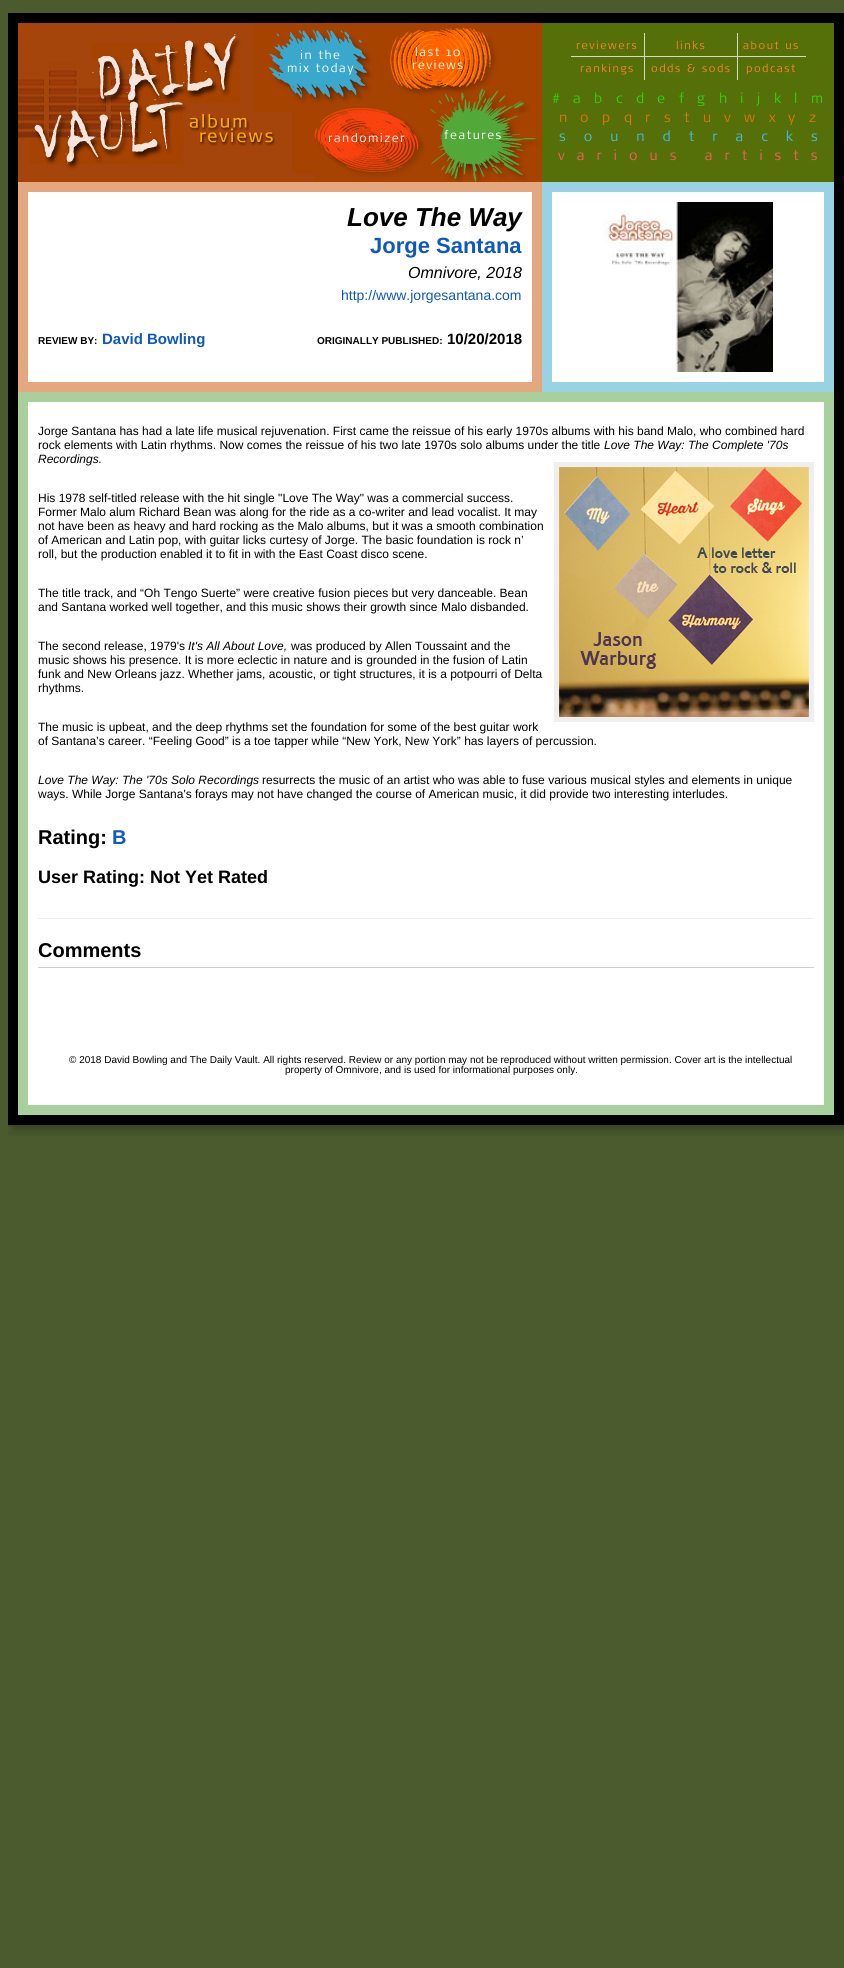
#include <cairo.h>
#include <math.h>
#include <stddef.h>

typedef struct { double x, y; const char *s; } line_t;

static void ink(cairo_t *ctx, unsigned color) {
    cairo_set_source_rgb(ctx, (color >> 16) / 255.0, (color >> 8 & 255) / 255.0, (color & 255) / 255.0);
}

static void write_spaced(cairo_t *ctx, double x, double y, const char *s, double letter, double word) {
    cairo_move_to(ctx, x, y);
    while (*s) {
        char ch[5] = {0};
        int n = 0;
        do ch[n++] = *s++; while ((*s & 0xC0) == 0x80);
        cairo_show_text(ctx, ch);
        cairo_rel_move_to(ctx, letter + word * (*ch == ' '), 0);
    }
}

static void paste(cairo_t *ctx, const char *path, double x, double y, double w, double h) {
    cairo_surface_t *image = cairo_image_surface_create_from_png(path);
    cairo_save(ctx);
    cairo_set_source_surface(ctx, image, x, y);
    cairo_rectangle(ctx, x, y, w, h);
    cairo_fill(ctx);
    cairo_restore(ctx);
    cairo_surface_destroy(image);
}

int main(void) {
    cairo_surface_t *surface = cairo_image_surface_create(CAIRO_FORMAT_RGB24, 844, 1968);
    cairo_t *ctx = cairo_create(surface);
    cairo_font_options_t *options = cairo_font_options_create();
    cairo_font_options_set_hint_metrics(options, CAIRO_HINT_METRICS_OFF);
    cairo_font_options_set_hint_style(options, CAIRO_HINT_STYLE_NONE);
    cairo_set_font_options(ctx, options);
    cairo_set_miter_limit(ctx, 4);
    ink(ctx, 0x4C5B2D);
    cairo_paint(ctx);
    ink(ctx, 0x000000);
    cairo_rectangle(ctx, 8, 13, 836, 1112);
    cairo_fill(ctx);
    paste(ctx, "media/1.png", 8, 1125, 836, 11);
    paste(ctx, "media/2.png", 18, 23, 524, 159);
    cairo_select_font_face(ctx, "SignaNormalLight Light", CAIRO_FONT_SLANT_NORMAL, CAIRO_FONT_WEIGHT_NORMAL);
    cairo_set_font_size(ctx, 12);
    ink(ctx, 0xFFFFFF);
    {
        static const line_t items[] = {
            {300, 59, "in the"},
            {287, 72, "mix today"},
            {415, 56, "last 10"},
            {412, 69, "reviews"},
            {328, 142, "randomizer"},
            {444, 139, "features"},
        };
        for (size_t i = 0; i < sizeof items / sizeof *items; i++) {
            write_spaced(ctx, items[i].x, items[i].y, items[i].s, 1.5, 0);
        }
    }
    ink(ctx, 0x557009);
    cairo_rectangle(ctx, 542, 23, 292, 159);
    cairo_fill(ctx);
    cairo_set_font_size(ctx, 11);
    ink(ctx, 0xFE8230);
    {
        static const line_t items[] = {
            {576, 49, "reviewers"},
            {676, 49, "links"},
            {743, 49, "about us"},
        };
        for (size_t i = 0; i < sizeof items / sizeof *items; i++) {
            write_spaced(ctx, items[i].x, items[i].y, items[i].s, 1.5, 0);
        }
    }
    ink(ctx, 0xD3DCBB);
    cairo_rectangle(ctx, 571, 56, 235, 1);
    cairo_fill(ctx);
    ink(ctx, 0xFE8230);
    write_spaced(ctx, 580, 72, "rankings", 1.5, 0);
    ink(ctx, 0xD3DCBB);
    cairo_rectangle(ctx, 644, 33, 1, 47);
    cairo_fill(ctx);
    ink(ctx, 0xFE8230);
    write_spaced(ctx, 651, 72, "odds & sods", 1.5, 0);
    ink(ctx, 0xD3DCBB);
    cairo_rectangle(ctx, 737, 33, 1, 47);
    cairo_fill(ctx);
    ink(ctx, 0xFE8230);
    write_spaced(ctx, 746, 72, "podcast", 1.5, 0);
    cairo_set_font_size(ctx, 14);
    ink(ctx, 0x34D208);
    {
        static const line_t items[] = {
            {552, 103, "#"},
            {573, 103, "a"},
            {594, 103, "b"},
            {616, 103, "c"},
            {636, 103, "d"},
            {657, 103, "e"},
            {679, 103, "f"},
            {697, 103, "g"},
            {719, 103, "h"},
            {740, 103, "i"},
            {757, 103, "j"},
            {774, 103, "k"},
            {794, 103, "l"},
            {811, 103, "m"},
        };
        for (size_t i = 0; i < sizeof items / sizeof *items; i++) {
            write_spaced(ctx, items[i].x, items[i].y, items[i].s, 1.5, 0);
        }
    }
    ink(ctx, 0xE27311);
    {
        static const line_t items[] = {
            {559, 122, "n"},
            {580, 122, "o"},
            {602, 122, "p"},
            {624, 122, "q"},
            {645, 122, "r"},
            {664, 122, "s"},
            {684, 122, "t"},
            {703, 122, "u"},
            {724, 122, "v"},
            {744, 122, "w"},
            {769, 122, "x"},
            {788, 122, "y"},
            {809, 122, "z"},
        };
        for (size_t i = 0; i < sizeof items / sizeof *items; i++) {
            write_spaced(ctx, items[i].x, items[i].y, items[i].s, 1.5, 0);
        }
    }
    ink(ctx, 0x4ABBE2);
    write_spaced(ctx, 559, 141, "soundtracks", 18, 0);
    ink(ctx, 0xFD5C58);
    write_spaced(ctx, 558, 160, "various artists", 12, 0);
    ink(ctx, 0xFFFFFF);
    cairo_rectangle(ctx, 23, 187, 514, 200);
    cairo_fill_preserve(ctx);
    ink(ctx, 0xE5A77E);
    cairo_set_line_width(ctx, 10);
    cairo_stroke(ctx);
    cairo_select_font_face(ctx, "Liberation Sans", CAIRO_FONT_SLANT_ITALIC, CAIRO_FONT_WEIGHT_BOLD);
    cairo_set_font_size(ctx, 26);
    ink(ctx, 0x000000);
    cairo_move_to(ctx, 347, 226);
    cairo_show_text(ctx, "Love The Way");
    cairo_select_font_face(ctx, "Liberation Sans", CAIRO_FONT_SLANT_NORMAL, CAIRO_FONT_WEIGHT_BOLD);
    cairo_set_font_size(ctx, 22);
    ink(ctx, 0x1059BC);
    cairo_move_to(ctx, 370, 253);
    cairo_show_text(ctx, "Jorge Santana");
    cairo_select_font_face(ctx, "Liberation Sans", CAIRO_FONT_SLANT_ITALIC, CAIRO_FONT_WEIGHT_NORMAL);
    cairo_set_font_size(ctx, 16);
    ink(ctx, 0x000000);
    cairo_move_to(ctx, 408, 278);
    cairo_show_text(ctx, "Omnivore, 2018");
    cairo_select_font_face(ctx, "Liberation Sans", CAIRO_FONT_SLANT_NORMAL, CAIRO_FONT_WEIGHT_NORMAL);
    cairo_set_font_size(ctx, 14);
    ink(ctx, 0x1059BC);
    cairo_move_to(ctx, 341, 300);
    cairo_show_text(ctx, "http://www.jorgesantana.com");
    cairo_select_font_face(ctx, "Liberation Sans", CAIRO_FONT_SLANT_NORMAL, CAIRO_FONT_WEIGHT_BOLD);
    cairo_set_font_size(ctx, 10);
    ink(ctx, 0x000000);
    cairo_move_to(ctx, 38, 344);
    cairo_show_text(ctx, "REVIEW BY:");
    cairo_set_font_size(ctx, 15);
    ink(ctx, 0x1059BC);
    cairo_move_to(ctx, 102, 344);
    cairo_show_text(ctx, "David Bowling");
    cairo_set_font_size(ctx, 10);
    ink(ctx, 0x000000);
    cairo_move_to(ctx, 317, 344);
    cairo_show_text(ctx, "ORIGINALLY PUBLISHED:");
    cairo_set_font_size(ctx, 15);
    cairo_move_to(ctx, 447, 344);
    cairo_show_text(ctx, "10/20/2018");
    ink(ctx, 0xFFFFFF);
    cairo_rectangle(ctx, 547, 187, 282, 200);
    cairo_fill_preserve(ctx);
    ink(ctx, 0x9AD2E5);
    cairo_stroke(ctx);
    paste(ctx, "media/3.png", 603, 202, 170, 170);
    ink(ctx, 0xFFFFFF);
    cairo_rectangle(ctx, 23, 397, 806, 713);
    cairo_fill_preserve(ctx);
    ink(ctx, 0xA7D09C);
    cairo_stroke(ctx);
    cairo_select_font_face(ctx, "Liberation Sans", CAIRO_FONT_SLANT_NORMAL, CAIRO_FONT_WEIGHT_NORMAL);
    cairo_set_font_size(ctx, 12);
    ink(ctx, 0x000000);
    cairo_move_to(ctx, 38, 435);
    cairo_show_text(ctx, "Jorge Santana has had a late life musical rejuvenation. First came the reissue of his early 1970s albums with his band Malo, who combined hard");
    cairo_move_to(ctx, 38, 449);
    cairo_show_text(ctx, "rock elements with Latin rhythms. Now comes the reissue of his two late 1970s solo albums under the title");
    cairo_select_font_face(ctx, "Liberation Sans", CAIRO_FONT_SLANT_ITALIC, CAIRO_FONT_WEIGHT_NORMAL);
    cairo_move_to(ctx, 604, 449);
    cairo_show_text(ctx, "Love The Way: The Complete '70s");
    cairo_move_to(ctx, 38, 463);
    cairo_show_text(ctx, "Recordings.");
    cairo_rectangle(ctx, 556.5, 464.5, 255, 255);
    ink(ctx, 0xEFEFEF);
    cairo_set_line_width(ctx, 5);
    cairo_stroke(ctx);
    paste(ctx, "media/4.png", 559, 467, 250, 250);
    cairo_select_font_face(ctx, "Liberation Sans", CAIRO_FONT_SLANT_NORMAL, CAIRO_FONT_WEIGHT_NORMAL);
    ink(ctx, 0x000000);
    {
        static const line_t items[] = {
            {38, 502, "His 1978 self-titled release with the hit single \"Love The Way\" was a commercial success."},
            {38, 516, "Former Malo alum Richard Bean was along for the ride as a co-writer and lead vocalist. It may"},
            {38, 530, "not have been as heavy and hard rocking as the Malo albums, but it was a smooth combination"},
            {38, 544, "of American and Latin pop, with guitar licks curtesy of Jorge. The basic foundation is rock n’"},
            {38, 558, "roll, but the production enabled it to fit in with the East Coast disco scene."},
            {38, 597, "The title track, and “Oh Tengo Suerte” were creative fusion pieces but very danceable. Bean"},
            {38, 611, "and Santana worked well together, and this music shows their growth since Malo disbanded."},
            {38, 650, "The second release, 1979's"},
        };
        for (size_t i = 0; i < sizeof items / sizeof *items; i++) {
            cairo_move_to(ctx, items[i].x, items[i].y);
            cairo_show_text(ctx, items[i].s);
        }
    }
    cairo_select_font_face(ctx, "Liberation Sans", CAIRO_FONT_SLANT_ITALIC, CAIRO_FONT_WEIGHT_NORMAL);
    cairo_move_to(ctx, 188, 650);
    cairo_show_text(ctx, "It's All About Love,");
    cairo_select_font_face(ctx, "Liberation Sans", CAIRO_FONT_SLANT_NORMAL, CAIRO_FONT_WEIGHT_NORMAL);
    {
        static const line_t items[] = {
            {291, 650, "was produced by Allen Toussaint and the"},
            {38, 664, "music shows his presence. It is more eclectic in nature and is grounded in the fusion of Latin"},
            {38, 678, "funk and New Orleans jazz. Whether jams, acoustic, or tight structures, it is a potpourri of Delta"},
            {38, 692, "rhythms."},
            {38, 731, "The music is upbeat, and the deep rhythms set the foundation for some of the best guitar work"},
            {38, 745, "of Santana’s career. “Feeling Good” is a toe tapper while “New York, New York” has layers of percussion."},
        };
        for (size_t i = 0; i < sizeof items / sizeof *items; i++) {
            cairo_move_to(ctx, items[i].x, items[i].y);
            cairo_show_text(ctx, items[i].s);
        }
    }
    cairo_select_font_face(ctx, "Liberation Sans", CAIRO_FONT_SLANT_ITALIC, CAIRO_FONT_WEIGHT_NORMAL);
    cairo_move_to(ctx, 38, 784);
    cairo_show_text(ctx, "Love The Way: The '70s Solo Recordings");
    cairo_select_font_face(ctx, "Liberation Sans", CAIRO_FONT_SLANT_NORMAL, CAIRO_FONT_WEIGHT_NORMAL);
    cairo_move_to(ctx, 262, 784);
    cairo_show_text(ctx, "resurrects the music of an artist who was able to fuse various musical styles and elements in unique");
    cairo_move_to(ctx, 38, 798);
    cairo_show_text(ctx, "ways. While Jorge Santana's forays may not have changed the course of American music, it did provide two interesting interludes.");
    cairo_select_font_face(ctx, "Liberation Sans", CAIRO_FONT_SLANT_NORMAL, CAIRO_FONT_WEIGHT_BOLD);
    cairo_set_font_size(ctx, 20);
    cairo_move_to(ctx, 38, 844);
    cairo_show_text(ctx, "Rating:");
    ink(ctx, 0x1059BC);
    cairo_move_to(ctx, 112, 844);
    cairo_show_text(ctx, "B");
    cairo_set_font_size(ctx, 18);
    ink(ctx, 0x000000);
    cairo_move_to(ctx, 38, 883);
    cairo_show_text(ctx, "User Rating: Not Yet Rated");
    ink(ctx, 0xEEEEEE);
    cairo_rectangle(ctx, 38, 918, 776, 1);
    cairo_fill(ctx);
    cairo_set_font_size(ctx, 20);
    ink(ctx, 0x000000);
    cairo_move_to(ctx, 38, 957);
    cairo_show_text(ctx, "Comments");
    ink(ctx, 0xCCCCCC);
    cairo_rectangle(ctx, 38, 967, 776, 1);
    cairo_fill(ctx);
    cairo_select_font_face(ctx, "Liberation Sans", CAIRO_FONT_SLANT_NORMAL, CAIRO_FONT_WEIGHT_NORMAL);
    cairo_set_font_size(ctx, 10);
    ink(ctx, 0x000000);
    cairo_move_to(ctx, 69, 1063);
    cairo_show_text(ctx, "© 2018 David Bowling and The Daily Vault. All rights reserved. Review or any portion may not be reproduced without written permission. Cover art is the intellectual");
    cairo_move_to(ctx, 285, 1073);
    cairo_show_text(ctx, "property of Omnivore, and is used for informational purposes only.");
    paste(ctx, "media/5.png", 8, 1126, 6, 6);
    cairo_surface_write_to_png(surface, "image.png");
    cairo_font_options_destroy(options);
    cairo_destroy(ctx);
    cairo_surface_destroy(surface);
    return 0;
}
